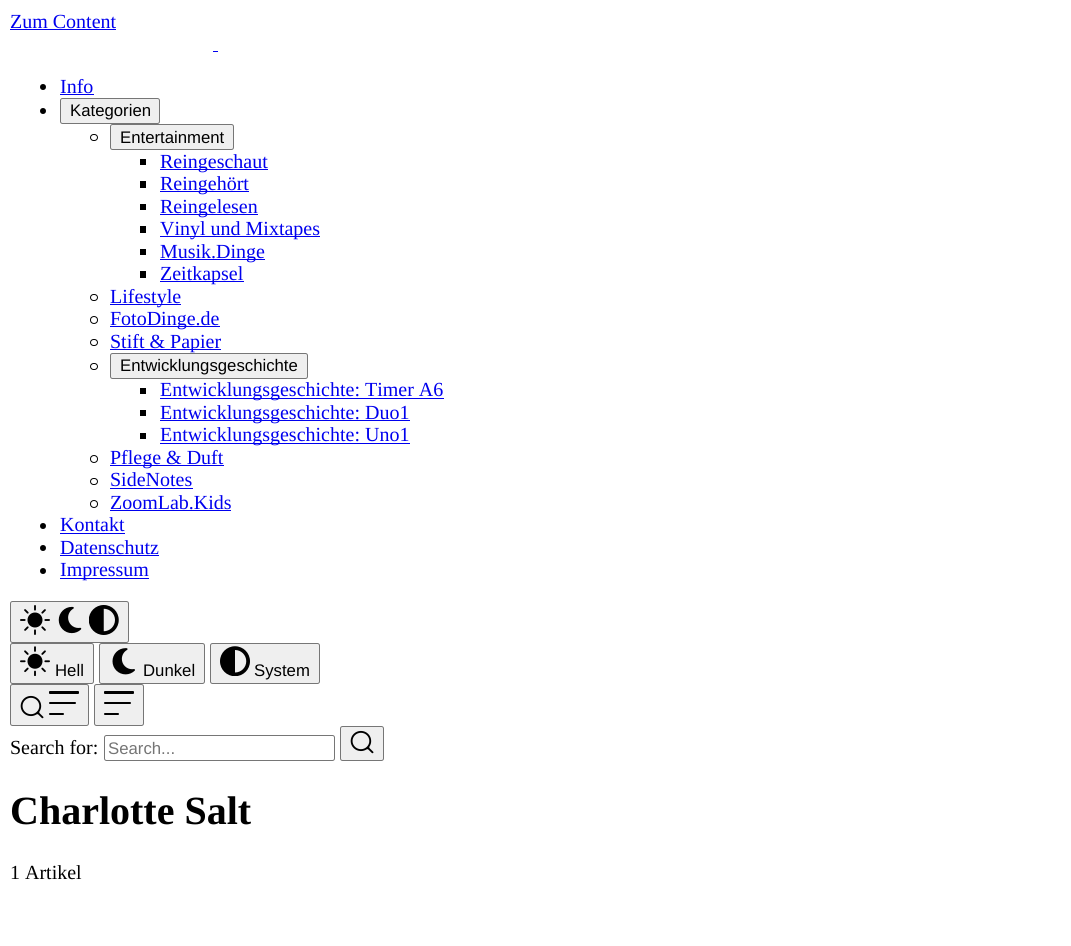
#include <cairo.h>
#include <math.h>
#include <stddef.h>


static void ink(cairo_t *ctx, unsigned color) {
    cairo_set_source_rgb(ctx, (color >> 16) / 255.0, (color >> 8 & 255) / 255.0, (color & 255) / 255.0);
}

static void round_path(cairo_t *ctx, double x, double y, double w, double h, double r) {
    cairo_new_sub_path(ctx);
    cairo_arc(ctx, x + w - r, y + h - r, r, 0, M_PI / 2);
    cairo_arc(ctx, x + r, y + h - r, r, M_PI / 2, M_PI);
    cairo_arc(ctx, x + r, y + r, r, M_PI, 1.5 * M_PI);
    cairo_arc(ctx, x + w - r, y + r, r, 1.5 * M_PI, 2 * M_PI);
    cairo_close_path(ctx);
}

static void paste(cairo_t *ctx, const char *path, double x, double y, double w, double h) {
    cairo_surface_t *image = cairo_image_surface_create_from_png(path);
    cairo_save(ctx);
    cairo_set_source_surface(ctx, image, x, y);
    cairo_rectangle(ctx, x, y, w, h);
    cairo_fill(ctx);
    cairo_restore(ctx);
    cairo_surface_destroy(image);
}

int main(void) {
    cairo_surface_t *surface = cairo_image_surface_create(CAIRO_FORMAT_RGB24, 1071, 946);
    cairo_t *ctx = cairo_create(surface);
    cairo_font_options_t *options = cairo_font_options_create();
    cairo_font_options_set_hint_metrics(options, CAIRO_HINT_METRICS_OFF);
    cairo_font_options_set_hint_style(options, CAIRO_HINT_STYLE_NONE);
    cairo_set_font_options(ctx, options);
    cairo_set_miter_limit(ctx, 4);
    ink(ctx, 0xFFFFFF);
    cairo_paint(ctx);
    cairo_select_font_face(ctx, "Liberation Serif", CAIRO_FONT_SLANT_NORMAL, CAIRO_FONT_WEIGHT_NORMAL);
    cairo_set_font_size(ctx, 20);
    ink(ctx, 0x0000EE);
    cairo_move_to(ctx, 10, 28);
    cairo_show_text(ctx, "Zum Content");
    cairo_rectangle(ctx, 10, 29, 106, 1);
    cairo_fill(ctx);
    cairo_rectangle(ctx, 213, 51, 5, 1);
    cairo_fill(ctx);
    ink(ctx, 0x000000);
    cairo_arc(ctx, 43, 87, 3, 0, 2 * M_PI);
    cairo_fill(ctx);
    ink(ctx, 0x0000EE);
    cairo_move_to(ctx, 60, 93);
    cairo_show_text(ctx, "Info");
    cairo_rectangle(ctx, 60, 94, 34, 1);
    cairo_fill(ctx);
    ink(ctx, 0x000000);
    cairo_arc(ctx, 43, 111, 3, 0, 2 * M_PI);
    cairo_fill(ctx);
    ink(ctx, 0xEFEFEF);
    round_path(ctx, 60.5, 98.5, 99, 25, 2);
    cairo_fill_preserve(ctx);
    ink(ctx, 0x767676);
    cairo_set_line_width(ctx, 1);
    cairo_stroke(ctx);
    cairo_select_font_face(ctx, "Liberation Sans", CAIRO_FONT_SLANT_NORMAL, CAIRO_FONT_WEIGHT_NORMAL);
    cairo_set_font_size(ctx, 16.75);
    ink(ctx, 0x000000);
    cairo_move_to(ctx, 70, 116);
    cairo_show_text(ctx, "Kategorien");
    round_path(ctx, 90.5, 134.5, 7, 6, 3);
    cairo_stroke(ctx);
    ink(ctx, 0xEFEFEF);
    round_path(ctx, 110.5, 124.5, 123, 25, 2);
    cairo_fill_preserve(ctx);
    ink(ctx, 0x767676);
    cairo_stroke(ctx);
    ink(ctx, 0x000000);
    cairo_move_to(ctx, 120, 143);
    cairo_show_text(ctx, "Entertainment");
    cairo_rectangle(ctx, 140, 159, 6, 6);
    cairo_fill(ctx);
    ink(ctx, 0x0000EE);
    cairo_rectangle(ctx, 160, 169, 108, 1);
    cairo_fill(ctx);
    cairo_select_font_face(ctx, "Liberation Serif", CAIRO_FONT_SLANT_NORMAL, CAIRO_FONT_WEIGHT_NORMAL);
    cairo_set_font_size(ctx, 20);
    cairo_move_to(ctx, 160, 168);
    cairo_show_text(ctx, "Reingeschaut");
    ink(ctx, 0x000000);
    cairo_rectangle(ctx, 140, 181, 6, 7);
    cairo_fill(ctx);
    ink(ctx, 0x0000EE);
    cairo_rectangle(ctx, 160, 191, 89, 1);
    cairo_fill(ctx);
    cairo_move_to(ctx, 160, 190);
    cairo_show_text(ctx, "Reingehört");
    ink(ctx, 0x000000);
    cairo_rectangle(ctx, 140, 204, 6, 6);
    cairo_fill(ctx);
    ink(ctx, 0x0000EE);
    cairo_rectangle(ctx, 160, 214, 98, 1);
    cairo_fill(ctx);
    cairo_move_to(ctx, 160, 213);
    cairo_show_text(ctx, "Reingelesen");
    ink(ctx, 0x000000);
    cairo_rectangle(ctx, 140, 226, 6, 7);
    cairo_fill(ctx);
    ink(ctx, 0x0000EE);
    cairo_rectangle(ctx, 160, 236, 160, 1);
    cairo_fill(ctx);
    cairo_move_to(ctx, 160, 235);
    cairo_show_text(ctx, "Vinyl und Mixtapes");
    ink(ctx, 0x000000);
    cairo_rectangle(ctx, 140, 249, 6, 6);
    cairo_fill(ctx);
    ink(ctx, 0x0000EE);
    cairo_rectangle(ctx, 160, 259, 105, 1);
    cairo_fill(ctx);
    cairo_move_to(ctx, 160, 258);
    cairo_show_text(ctx, "Musik.Dinge");
    ink(ctx, 0x000000);
    cairo_rectangle(ctx, 140, 271, 6, 7);
    cairo_fill(ctx);
    ink(ctx, 0x0000EE);
    cairo_rectangle(ctx, 160, 281, 84, 1);
    cairo_fill(ctx);
    cairo_move_to(ctx, 160, 280);
    cairo_show_text(ctx, "Zeitkapsel");
    round_path(ctx, 90.5, 294.5, 7, 6, 3);
    ink(ctx, 0x000000);
    cairo_stroke(ctx);
    ink(ctx, 0x0000EE);
    cairo_rectangle(ctx, 110, 304, 71, 1);
    cairo_fill(ctx);
    cairo_move_to(ctx, 110, 303);
    cairo_show_text(ctx, "Lifestyle");
    cairo_new_path(ctx);
    cairo_arc(ctx, 94, 320, 3.5, 0, 2 * M_PI);
    ink(ctx, 0x000000);
    cairo_stroke(ctx);
    ink(ctx, 0x0000EE);
    cairo_rectangle(ctx, 110, 326, 110, 1);
    cairo_fill(ctx);
    cairo_move_to(ctx, 110, 325);
    cairo_show_text(ctx, "FotoDinge.de");
    round_path(ctx, 90.5, 339.5, 7, 6, 3);
    ink(ctx, 0x000000);
    cairo_stroke(ctx);
    ink(ctx, 0x0000EE);
    cairo_rectangle(ctx, 110, 349, 111, 1);
    cairo_fill(ctx);
    cairo_move_to(ctx, 110, 348);
    cairo_show_text(ctx, "Stift & Papier");
    round_path(ctx, 90.5, 363.5, 7, 6, 3);
    ink(ctx, 0x000000);
    cairo_stroke(ctx);
    ink(ctx, 0xEFEFEF);
    round_path(ctx, 110.5, 353.5, 197, 25, 2);
    cairo_fill_preserve(ctx);
    ink(ctx, 0x767676);
    cairo_stroke(ctx);
    cairo_select_font_face(ctx, "Liberation Sans", CAIRO_FONT_SLANT_NORMAL, CAIRO_FONT_WEIGHT_NORMAL);
    cairo_set_font_size(ctx, 16.75);
    ink(ctx, 0x000000);
    cairo_move_to(ctx, 120, 371);
    cairo_show_text(ctx, "Entwicklungsgeschichte");
    cairo_rectangle(ctx, 140, 388, 6, 6);
    cairo_fill(ctx);
    ink(ctx, 0x0000EE);
    cairo_rectangle(ctx, 160, 398, 284, 1);
    cairo_fill(ctx);
    cairo_select_font_face(ctx, "Liberation Serif", CAIRO_FONT_SLANT_NORMAL, CAIRO_FONT_WEIGHT_NORMAL);
    cairo_set_font_size(ctx, 20);
    cairo_move_to(ctx, 160, 396);
    cairo_show_text(ctx, "Entwicklungsgeschichte: Timer A6");
    ink(ctx, 0x000000);
    cairo_rectangle(ctx, 140, 410, 6, 6);
    cairo_fill(ctx);
    ink(ctx, 0x0000EE);
    cairo_rectangle(ctx, 160, 420, 250, 1);
    cairo_fill(ctx);
    cairo_move_to(ctx, 160, 419);
    cairo_show_text(ctx, "Entwicklungsgeschichte: Duo1");
    ink(ctx, 0x000000);
    cairo_rectangle(ctx, 140, 433, 6, 6);
    cairo_fill(ctx);
    ink(ctx, 0x0000EE);
    cairo_rectangle(ctx, 160, 443, 250, 1);
    cairo_fill(ctx);
    cairo_move_to(ctx, 160, 441);
    cairo_show_text(ctx, "Entwicklungsgeschichte: Uno1");
    cairo_new_path(ctx);
    cairo_arc(ctx, 94, 459, 3.5, 0, 2 * M_PI);
    ink(ctx, 0x000000);
    cairo_stroke(ctx);
    ink(ctx, 0x0000EE);
    cairo_rectangle(ctx, 110, 465, 114, 1);
    cairo_fill(ctx);
    cairo_move_to(ctx, 110, 464);
    cairo_show_text(ctx, "Pflege & Duft");
    round_path(ctx, 90.5, 478.5, 7, 6, 3);
    ink(ctx, 0x000000);
    cairo_stroke(ctx);
    ink(ctx, 0x0000EE);
    cairo_move_to(ctx, 110, 486);
    cairo_show_text(ctx, "SideNotes");
    cairo_rectangle(ctx, 110, 488, 83, 1);
    cairo_fill(ctx);
    cairo_arc(ctx, 94, 504, 3.5, 0, 2 * M_PI);
    ink(ctx, 0x000000);
    cairo_stroke(ctx);
    ink(ctx, 0x0000EE);
    cairo_move_to(ctx, 110, 509);
    cairo_show_text(ctx, "ZoomLab.Kids");
    cairo_rectangle(ctx, 110, 510, 121, 1);
    cairo_fill(ctx);
    ink(ctx, 0x000000);
    cairo_arc(ctx, 43, 526, 3, 0, 2 * M_PI);
    cairo_fill(ctx);
    ink(ctx, 0x0000EE);
    cairo_move_to(ctx, 60, 531);
    cairo_show_text(ctx, "Kontakt");
    cairo_rectangle(ctx, 60, 533, 65, 1);
    cairo_fill(ctx);
    ink(ctx, 0x000000);
    cairo_arc(ctx, 43, 548, 3, 0, 2 * M_PI);
    cairo_fill(ctx);
    ink(ctx, 0x0000EE);
    cairo_move_to(ctx, 60, 554);
    cairo_show_text(ctx, "Datenschutz");
    cairo_rectangle(ctx, 60, 555, 99, 1);
    cairo_fill(ctx);
    ink(ctx, 0x000000);
    cairo_arc(ctx, 43, 571, 3, 0, 2 * M_PI);
    cairo_fill(ctx);
    ink(ctx, 0x0000EE);
    cairo_rectangle(ctx, 60, 578, 89, 1);
    cairo_fill(ctx);
    cairo_move_to(ctx, 60, 576);
    cairo_show_text(ctx, "Impressum");
    ink(ctx, 0xEFEFEF);
    round_path(ctx, 10.5, 601.5, 118, 41, 2);
    cairo_fill_preserve(ctx);
    ink(ctx, 0x767676);
    cairo_stroke(ctx);
    paste(ctx, "media/1.png", 20, 605, 30, 30);
    paste(ctx, "media/2.png", 58, 606, 24, 28);
    paste(ctx, "media/3.png", 89, 605, 30, 30);
    ink(ctx, 0xEFEFEF);
    round_path(ctx, 10.5, 643.5, 83, 40, 2);
    cairo_fill_preserve(ctx);
    ink(ctx, 0x767676);
    cairo_stroke(ctx);
    paste(ctx, "media/4.png", 20, 646, 30, 30);
    cairo_select_font_face(ctx, "Liberation Sans", CAIRO_FONT_SLANT_NORMAL, CAIRO_FONT_WEIGHT_NORMAL);
    cairo_set_font_size(ctx, 16.75);
    ink(ctx, 0x000000);
    cairo_move_to(ctx, 55, 676);
    cairo_show_text(ctx, "Hell");
    ink(ctx, 0xEFEFEF);
    round_path(ctx, 99.5, 643.5, 105, 40, 2);
    cairo_fill_preserve(ctx);
    ink(ctx, 0x767676);
    cairo_stroke(ctx);
    paste(ctx, "media/5.png", 112, 648, 23, 27);
    ink(ctx, 0x000000);
    cairo_move_to(ctx, 143, 676);
    cairo_show_text(ctx, "Dunkel");
    ink(ctx, 0xEFEFEF);
    round_path(ctx, 210.5, 643.5, 109, 40, 2);
    cairo_fill_preserve(ctx);
    ink(ctx, 0x767676);
    cairo_stroke(ctx);
    paste(ctx, "media/6.png", 220, 646, 30, 30);
    ink(ctx, 0x000000);
    cairo_move_to(ctx, 254, 676);
    cairo_show_text(ctx, "System");
    ink(ctx, 0xEFEFEF);
    round_path(ctx, 10.5, 684.5, 78, 41, 2);
    cairo_fill_preserve(ctx);
    ink(ctx, 0x767676);
    cairo_stroke(ctx);
    ink(ctx, 0x000000);
    round_path(ctx, 49, 691, 30, 3, 1);
    cairo_fill(ctx);
    paste(ctx, "media/7.png", 20, 695, 24, 24);
    round_path(ctx, 49, 702, 27, 2, 1);
    cairo_fill(ctx);
    round_path(ctx, 49, 713, 15, 2, 1);
    cairo_fill(ctx);
    ink(ctx, 0xEFEFEF);
    round_path(ctx, 94.5, 684.5, 49, 41, 2);
    cairo_fill_preserve(ctx);
    ink(ctx, 0x767676);
    cairo_stroke(ctx);
    ink(ctx, 0x000000);
    round_path(ctx, 104, 691, 30, 3, 1);
    cairo_fill(ctx);
    round_path(ctx, 104, 702, 27, 2, 1);
    cairo_fill(ctx);
    round_path(ctx, 104, 713, 15, 2, 1);
    cairo_fill(ctx);
    cairo_select_font_face(ctx, "Liberation Serif", CAIRO_FONT_SLANT_NORMAL, CAIRO_FONT_WEIGHT_NORMAL);
    cairo_set_font_size(ctx, 20);
    cairo_move_to(ctx, 10, 754);
    cairo_show_text(ctx, "Search for:");
    round_path(ctx, 104.5, 735.5, 230, 25, 2);
    ink(ctx, 0x767676);
    cairo_stroke(ctx);
    cairo_select_font_face(ctx, "Liberation Sans", CAIRO_FONT_SLANT_NORMAL, CAIRO_FONT_WEIGHT_NORMAL);
    cairo_set_font_size(ctx, 16.75);
    ink(ctx, 0x757575);
    cairo_move_to(ctx, 108, 754);
    cairo_show_text(ctx, "Search...");
    ink(ctx, 0xEFEFEF);
    round_path(ctx, 340.5, 726.5, 43, 34, 2);
    cairo_fill_preserve(ctx);
    ink(ctx, 0x767676);
    cairo_stroke(ctx);
    paste(ctx, "media/7.png", 350, 730, 24, 24);
    cairo_select_font_face(ctx, "Liberation Serif", CAIRO_FONT_SLANT_NORMAL, CAIRO_FONT_WEIGHT_BOLD);
    cairo_set_font_size(ctx, 40);
    ink(ctx, 0x000000);
    cairo_move_to(ctx, 10, 824);
    cairo_show_text(ctx, "Charlotte Salt");
    cairo_select_font_face(ctx, "Liberation Serif", CAIRO_FONT_SLANT_NORMAL, CAIRO_FONT_WEIGHT_NORMAL);
    cairo_set_font_size(ctx, 20);
    cairo_move_to(ctx, 10, 879);
    cairo_show_text(ctx, "1 Artikel");
    cairo_surface_write_to_png(surface, "image.png");
    cairo_font_options_destroy(options);
    cairo_destroy(ctx);
    cairo_surface_destroy(surface);
    return 0;
}
